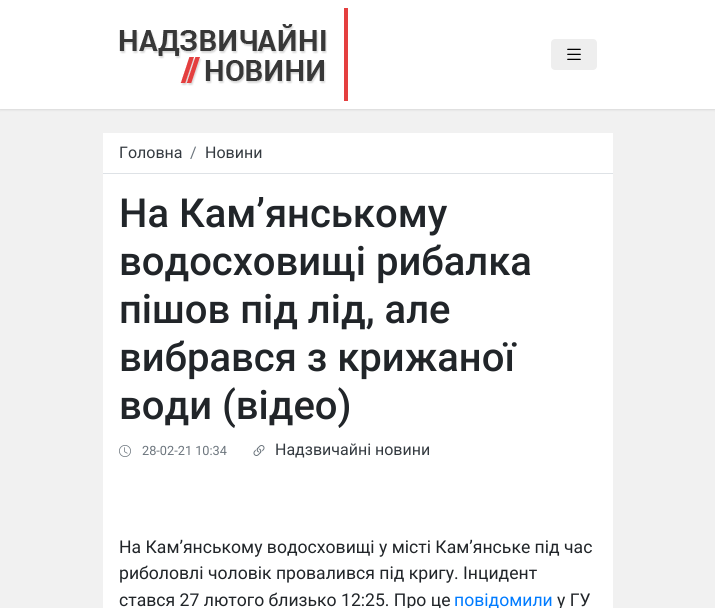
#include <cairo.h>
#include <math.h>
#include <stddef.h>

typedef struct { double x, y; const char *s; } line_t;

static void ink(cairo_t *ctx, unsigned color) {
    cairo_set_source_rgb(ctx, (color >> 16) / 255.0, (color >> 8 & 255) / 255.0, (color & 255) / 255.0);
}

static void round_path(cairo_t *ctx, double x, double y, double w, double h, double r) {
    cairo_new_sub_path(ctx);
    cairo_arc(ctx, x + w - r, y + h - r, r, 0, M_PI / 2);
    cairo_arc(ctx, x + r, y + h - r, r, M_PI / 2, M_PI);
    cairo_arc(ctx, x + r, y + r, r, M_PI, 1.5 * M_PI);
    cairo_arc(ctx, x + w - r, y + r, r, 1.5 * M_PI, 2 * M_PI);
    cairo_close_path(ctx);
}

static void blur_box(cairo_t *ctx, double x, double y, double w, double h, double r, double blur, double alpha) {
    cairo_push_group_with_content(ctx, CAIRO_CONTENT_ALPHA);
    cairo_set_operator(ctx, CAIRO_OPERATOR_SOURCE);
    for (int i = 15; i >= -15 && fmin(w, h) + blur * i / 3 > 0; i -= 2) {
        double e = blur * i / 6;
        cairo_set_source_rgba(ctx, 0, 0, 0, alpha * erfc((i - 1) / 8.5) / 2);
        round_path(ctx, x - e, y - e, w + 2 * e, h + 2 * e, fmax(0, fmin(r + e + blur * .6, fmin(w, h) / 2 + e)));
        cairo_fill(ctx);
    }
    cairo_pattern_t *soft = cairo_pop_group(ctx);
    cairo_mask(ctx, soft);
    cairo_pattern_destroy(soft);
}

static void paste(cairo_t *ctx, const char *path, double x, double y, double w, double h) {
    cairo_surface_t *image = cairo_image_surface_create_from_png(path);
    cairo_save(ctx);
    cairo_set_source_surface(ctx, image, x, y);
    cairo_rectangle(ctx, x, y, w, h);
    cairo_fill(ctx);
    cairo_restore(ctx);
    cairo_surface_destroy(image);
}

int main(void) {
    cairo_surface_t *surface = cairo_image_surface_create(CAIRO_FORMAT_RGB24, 715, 608);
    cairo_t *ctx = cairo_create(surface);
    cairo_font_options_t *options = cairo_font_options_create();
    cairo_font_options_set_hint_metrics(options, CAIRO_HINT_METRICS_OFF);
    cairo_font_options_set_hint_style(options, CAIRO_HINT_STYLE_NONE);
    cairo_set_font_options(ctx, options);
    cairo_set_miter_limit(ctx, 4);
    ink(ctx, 0xF1F1F1);
    cairo_paint(ctx);
    ink(ctx, 0x000000);
    blur_box(ctx, 0, 1, 715, 109, 0, 1, 0.1);
    ink(ctx, 0xFFFFFF);
    cairo_rectangle(ctx, 0, 0, 715, 109);
    cairo_fill(ctx);
    ink(ctx, 0xE43F3F);
    cairo_rectangle(ctx, 344, 8, 4, 93);
    cairo_fill(ctx);
    paste(ctx, "media/1.png", 119, 24, 208, 62);
    ink(ctx, 0xEEEEEE);
    round_path(ctx, 551, 39, 46, 31, 4);
    cairo_fill(ctx);
    paste(ctx, "media/2.png", 567, 48, 14, 12);
    ink(ctx, 0xFFFFFF);
    cairo_rectangle(ctx, 103, 133, 510, 40);
    cairo_fill(ctx);
    ink(ctx, 0xDEE2E6);
    cairo_rectangle(ctx, 103, 173, 510, 1);
    cairo_fill(ctx);
    cairo_select_font_face(ctx, "Roboto", CAIRO_FONT_SLANT_NORMAL, CAIRO_FONT_WEIGHT_NORMAL);
    cairo_set_font_size(ctx, 16);
    ink(ctx, 0x343A40);
    cairo_move_to(ctx, 119, 158);
    cairo_show_text(ctx, "Головна");
    ink(ctx, 0x6C757D);
    cairo_move_to(ctx, 190, 158);
    cairo_show_text(ctx, "/");
    ink(ctx, 0x343A40);
    cairo_move_to(ctx, 205, 158);
    cairo_show_text(ctx, "Новини");
    ink(ctx, 0xFFFFFF);
    cairo_rectangle(ctx, 103, 174, 510, 434);
    cairo_fill(ctx);
    cairo_select_font_face(ctx, "Roboto Medium", CAIRO_FONT_SLANT_NORMAL, CAIRO_FONT_WEIGHT_NORMAL);
    cairo_set_font_size(ctx, 40);
    ink(ctx, 0x212529);
    {
        static const line_t items[] = {
            {119, 227, "На Кам’янському"},
            {119, 275, "водосховищі рибалка"},
            {119, 323, "пішов під лід, але"},
            {119, 371, "вибрався з крижаної"},
            {119, 419, "води (відео)"},
        };
        for (size_t i = 0; i < sizeof items / sizeof *items; i++) {
            cairo_move_to(ctx, items[i].x, items[i].y);
            cairo_show_text(ctx, items[i].s);
        }
    }
    paste(ctx, "media/3.png", 119, 445, 12, 12);
    cairo_select_font_face(ctx, "Roboto", CAIRO_FONT_SLANT_NORMAL, CAIRO_FONT_WEIGHT_NORMAL);
    cairo_set_font_size(ctx, 12.75);
    ink(ctx, 0x6C757D);
    cairo_move_to(ctx, 142, 455);
    cairo_show_text(ctx, "28-02-21 10:34");
    paste(ctx, "media/4.png", 253, 445, 12, 11);
    cairo_set_font_size(ctx, 16);
    ink(ctx, 0x343A40);
    cairo_move_to(ctx, 275, 455);
    cairo_show_text(ctx, "Надзвичайні новини");
    cairo_set_font_size(ctx, 17.6);
    ink(ctx, 0x212529);
    {
        static const line_t items[] = {
            {119, 553, "На Кам’янському водосховищі у місті Кам’янське під час"},
            {119, 579, "риболовлі чоловік провалився під кригу. Інцидент"},
            {119, 606, "стався 27 лютого близько 12:25. Про це"},
        };
        for (size_t i = 0; i < sizeof items / sizeof *items; i++) {
            cairo_move_to(ctx, items[i].x, items[i].y);
            cairo_show_text(ctx, items[i].s);
        }
    }
    ink(ctx, 0x007BFF);
    cairo_move_to(ctx, 454, 606);
    cairo_show_text(ctx, "повідомили");
    ink(ctx, 0x212529);
    cairo_move_to(ctx, 557, 606);
    cairo_show_text(ctx, "у ГУ");
    cairo_surface_write_to_png(surface, "image.png");
    cairo_font_options_destroy(options);
    cairo_destroy(ctx);
    cairo_surface_destroy(surface);
    return 0;
}
